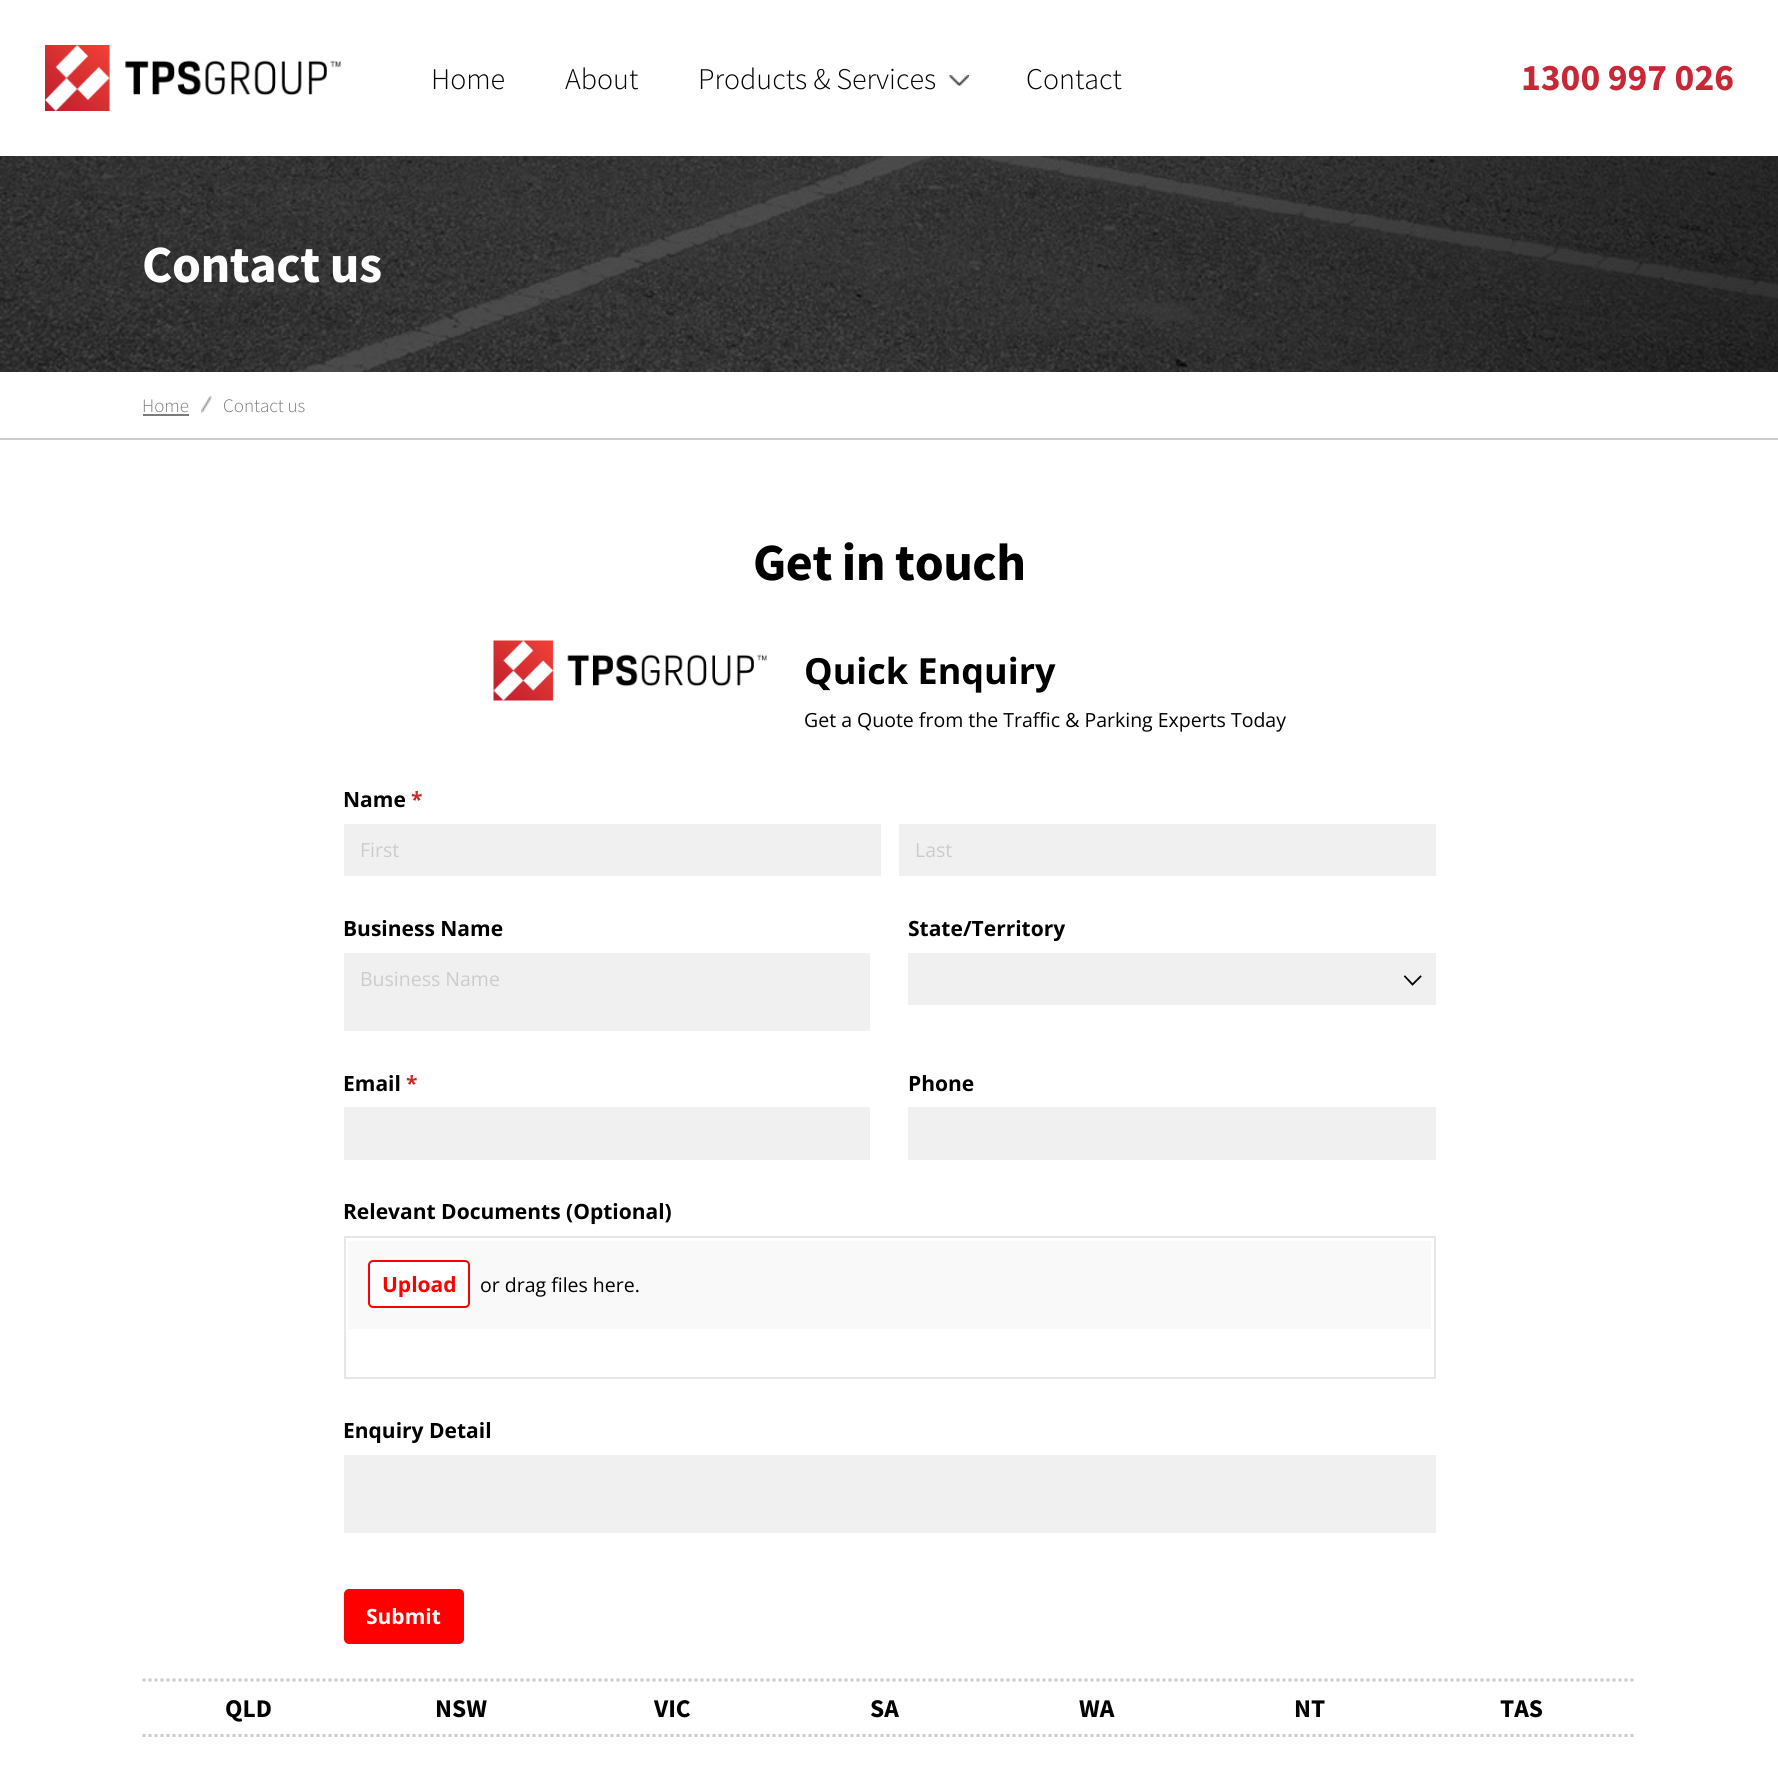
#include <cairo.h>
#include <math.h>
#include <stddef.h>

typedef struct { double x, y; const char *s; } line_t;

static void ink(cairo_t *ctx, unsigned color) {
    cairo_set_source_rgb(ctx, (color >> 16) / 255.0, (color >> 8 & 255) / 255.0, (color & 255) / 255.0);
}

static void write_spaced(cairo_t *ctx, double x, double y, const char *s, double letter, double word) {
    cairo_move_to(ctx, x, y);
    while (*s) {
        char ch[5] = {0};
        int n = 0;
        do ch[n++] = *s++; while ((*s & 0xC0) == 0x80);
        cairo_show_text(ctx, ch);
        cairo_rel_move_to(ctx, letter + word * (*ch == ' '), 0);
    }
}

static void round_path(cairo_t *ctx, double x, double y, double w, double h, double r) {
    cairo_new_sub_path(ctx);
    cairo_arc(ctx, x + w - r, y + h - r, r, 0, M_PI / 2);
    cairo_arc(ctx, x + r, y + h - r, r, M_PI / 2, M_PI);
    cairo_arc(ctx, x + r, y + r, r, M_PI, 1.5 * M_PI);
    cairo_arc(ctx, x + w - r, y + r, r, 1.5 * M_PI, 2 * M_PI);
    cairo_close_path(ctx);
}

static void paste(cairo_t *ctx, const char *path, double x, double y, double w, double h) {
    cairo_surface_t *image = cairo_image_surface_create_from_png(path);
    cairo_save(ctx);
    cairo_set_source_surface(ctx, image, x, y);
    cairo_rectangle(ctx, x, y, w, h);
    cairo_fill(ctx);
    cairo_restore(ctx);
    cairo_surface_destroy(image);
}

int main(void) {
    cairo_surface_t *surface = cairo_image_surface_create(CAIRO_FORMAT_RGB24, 1778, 1778);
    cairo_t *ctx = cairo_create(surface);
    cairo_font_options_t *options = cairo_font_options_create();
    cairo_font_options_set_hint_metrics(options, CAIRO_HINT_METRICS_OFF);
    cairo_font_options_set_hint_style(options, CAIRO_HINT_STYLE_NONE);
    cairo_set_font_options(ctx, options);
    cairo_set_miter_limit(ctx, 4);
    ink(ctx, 0xFFFFFF);
    cairo_paint(ctx);
    paste(ctx, "media/1.png", 45, 45, 296, 66);
    cairo_select_font_face(ctx, "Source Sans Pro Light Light", CAIRO_FONT_SLANT_NORMAL, CAIRO_FONT_WEIGHT_NORMAL);
    cairo_set_font_size(ctx, 30);
    ink(ctx, 0x000000);
    cairo_move_to(ctx, 431, 89);
    cairo_show_text(ctx, "Home");
    cairo_move_to(ctx, 565, 89);
    cairo_show_text(ctx, "About");
    paste(ctx, "media/2.png", 949, 75, 20, 11);
    cairo_move_to(ctx, 698, 89);
    cairo_show_text(ctx, "Products & Services");
    cairo_move_to(ctx, 1026, 89);
    cairo_show_text(ctx, "Contact");
    cairo_select_font_face(ctx, "Source Sans Pro", CAIRO_FONT_SLANT_NORMAL, CAIRO_FONT_WEIGHT_BOLD);
    cairo_set_font_size(ctx, 37.5);
    ink(ctx, 0xC82835);
    cairo_move_to(ctx, 1521, 90);
    cairo_show_text(ctx, "1300 997 026");
    paste(ctx, "media/3.png", 0, 156, 1778, 216);
    cairo_set_font_size(ctx, 52.25);
    ink(ctx, 0xFFFFFF);
    write_spaced(ctx, 142, 282, "Contact us", -0.5, 0);
    ink(ctx, 0xCCCCCC);
    cairo_rectangle(ctx, 0, 438, 1778, 2);
    cairo_fill(ctx);
    cairo_select_font_face(ctx, "Source Sans Pro Light Light", CAIRO_FONT_SLANT_NORMAL, CAIRO_FONT_WEIGHT_NORMAL);
    cairo_set_font_size(ctx, 19);
    ink(ctx, 0x7A7A7A);
    cairo_move_to(ctx, 142, 412);
    cairo_show_text(ctx, "Home");
    cairo_rectangle(ctx, 143, 414, 46, 2);
    cairo_fill(ctx);
    paste(ctx, "media/4.png", 201, 396, 11, 17);
    cairo_move_to(ctx, 223, 412);
    cairo_show_text(ctx, "Contact us");
    cairo_select_font_face(ctx, "Source Sans Pro", CAIRO_FONT_SLANT_NORMAL, CAIRO_FONT_WEIGHT_BOLD);
    cairo_set_font_size(ctx, 52.25);
    ink(ctx, 0x000000);
    write_spaced(ctx, 753, 580, "Get in touch", -0.5, 0);
    paste(ctx, "media/5.png", 493, 640, 274, 61);
    cairo_select_font_face(ctx, "Open Sans", CAIRO_FONT_SLANT_NORMAL, CAIRO_FONT_WEIGHT_BOLD);
    cairo_set_font_size(ctx, 36);
    cairo_move_to(ctx, 804, 684);
    cairo_show_text(ctx, "Quick Enquiry");
    cairo_select_font_face(ctx, "Open Sans", CAIRO_FONT_SLANT_NORMAL, CAIRO_FONT_WEIGHT_NORMAL);
    cairo_set_font_size(ctx, 19.5);
    cairo_move_to(ctx, 804, 727);
    cairo_show_text(ctx, "Get a Quote from the Traffic & Parking Experts Today");
    cairo_select_font_face(ctx, "Open Sans", CAIRO_FONT_SLANT_NORMAL, CAIRO_FONT_WEIGHT_BOLD);
    cairo_set_font_size(ctx, 21);
    cairo_move_to(ctx, 343, 807);
    cairo_show_text(ctx, "Name");
    ink(ctx, 0xCC2A24);
    cairo_move_to(ctx, 411, 807);
    cairo_show_text(ctx, "*");
    ink(ctx, 0xF0F0F0);
    cairo_rectangle(ctx, 344, 824, 537, 52);
    cairo_fill(ctx);
    cairo_select_font_face(ctx, "Open Sans", CAIRO_FONT_SLANT_NORMAL, CAIRO_FONT_WEIGHT_NORMAL);
    cairo_set_font_size(ctx, 19.5);
    ink(ctx, 0xCCCCCC);
    cairo_move_to(ctx, 360, 857);
    cairo_show_text(ctx, "First");
    ink(ctx, 0xF0F0F0);
    cairo_rectangle(ctx, 899, 824, 537, 52);
    cairo_fill(ctx);
    ink(ctx, 0xCCCCCC);
    cairo_move_to(ctx, 915, 857);
    cairo_show_text(ctx, "Last");
    cairo_select_font_face(ctx, "Open Sans", CAIRO_FONT_SLANT_NORMAL, CAIRO_FONT_WEIGHT_BOLD);
    cairo_set_font_size(ctx, 21);
    ink(ctx, 0x000000);
    cairo_move_to(ctx, 343, 936);
    cairo_show_text(ctx, "Business Name");
    ink(ctx, 0xF0F0F0);
    cairo_rectangle(ctx, 344, 953, 526, 78);
    cairo_fill(ctx);
    cairo_select_font_face(ctx, "Open Sans", CAIRO_FONT_SLANT_NORMAL, CAIRO_FONT_WEIGHT_NORMAL);
    cairo_set_font_size(ctx, 19.5);
    ink(ctx, 0xCCCCCC);
    cairo_move_to(ctx, 360, 986);
    cairo_show_text(ctx, "Business Name");
    cairo_select_font_face(ctx, "Open Sans", CAIRO_FONT_SLANT_NORMAL, CAIRO_FONT_WEIGHT_BOLD);
    cairo_set_font_size(ctx, 21);
    ink(ctx, 0x000000);
    cairo_move_to(ctx, 908, 936);
    cairo_show_text(ctx, "State/Territory");
    ink(ctx, 0xF0F0F0);
    cairo_rectangle(ctx, 908, 953, 528, 52);
    cairo_fill(ctx);
    cairo_new_path(ctx);
    cairo_move_to(ctx, 1405, 976.5);
    cairo_line_to(ctx, 1412.5, 984.5);
    cairo_line_to(ctx, 1420.5, 976.5);
    ink(ctx, 0x000000);
    cairo_set_line_width(ctx, 1.8);
    cairo_set_line_cap(ctx, CAIRO_LINE_CAP_SQUARE);
    cairo_stroke(ctx);
    cairo_move_to(ctx, 343, 1091);
    cairo_show_text(ctx, "Email");
    ink(ctx, 0xCC2A24);
    cairo_move_to(ctx, 406, 1091);
    cairo_show_text(ctx, "*");
    ink(ctx, 0xF0F0F0);
    cairo_rectangle(ctx, 344, 1107, 526, 53);
    cairo_fill(ctx);
    ink(ctx, 0x000000);
    cairo_move_to(ctx, 908, 1091);
    cairo_show_text(ctx, "Phone");
    ink(ctx, 0xF0F0F0);
    cairo_rectangle(ctx, 908, 1107, 528, 53);
    cairo_fill(ctx);
    ink(ctx, 0x000000);
    cairo_move_to(ctx, 343, 1219);
    cairo_show_text(ctx, "Relevant Documents (Optional)");
    cairo_rectangle(ctx, 345, 1237, 1090, 141);
    ink(ctx, 0xE6E6E6);
    cairo_set_line_width(ctx, 2);
    cairo_set_line_cap(ctx, CAIRO_LINE_CAP_BUTT);
    cairo_stroke(ctx);
    ink(ctx, 0xF9F9F9);
    cairo_rectangle(ctx, 348, 1241, 1083, 88);
    cairo_fill(ctx);
    ink(ctx, 0xFFFFFF);
    round_path(ctx, 369, 1261, 100, 46, 4);
    cairo_fill_preserve(ctx);
    ink(ctx, 0xFF0000);
    cairo_stroke(ctx);
    cairo_move_to(ctx, 382, 1292);
    cairo_show_text(ctx, "Upload");
    cairo_select_font_face(ctx, "Open Sans", CAIRO_FONT_SLANT_NORMAL, CAIRO_FONT_WEIGHT_NORMAL);
    cairo_set_font_size(ctx, 19.5);
    ink(ctx, 0x000000);
    cairo_move_to(ctx, 480, 1292);
    cairo_show_text(ctx, "or drag files here.");
    cairo_select_font_face(ctx, "Open Sans", CAIRO_FONT_SLANT_NORMAL, CAIRO_FONT_WEIGHT_BOLD);
    cairo_set_font_size(ctx, 21);
    cairo_move_to(ctx, 343, 1438);
    cairo_show_text(ctx, "Enquiry Detail");
    ink(ctx, 0xF0F0F0);
    cairo_rectangle(ctx, 344, 1455, 1092, 78);
    cairo_fill(ctx);
    ink(ctx, 0xFF0000);
    round_path(ctx, 345, 1590, 118, 53, 4);
    cairo_fill_preserve(ctx);
    cairo_stroke(ctx);
    ink(ctx, 0xFFFFFF);
    cairo_move_to(ctx, 366, 1624);
    cairo_show_text(ctx, "Submit");
    cairo_new_path(ctx);
    cairo_move_to(ctx, 142.5, 1680);
    cairo_line_to(ctx, 1636.5, 1680);
    ink(ctx, 0xCCCCCC);
    cairo_set_line_width(ctx, 3);
    cairo_set_dash(ctx, (double[]){3, 3}, 2, 0);
    cairo_stroke(ctx);
    cairo_new_path(ctx);
    cairo_move_to(ctx, 142.5, 1735.5);
    cairo_line_to(ctx, 1636.5, 1735.5);
    cairo_stroke(ctx);
    cairo_select_font_face(ctx, "Source Sans Pro", CAIRO_FONT_SLANT_NORMAL, CAIRO_FONT_WEIGHT_BOLD);
    cairo_set_font_size(ctx, 25.5);
    ink(ctx, 0x000000);
    {
        static const line_t items[] = {
            {225, 1717, "QLD"},
            {435, 1717, "NSW"},
            {654, 1717, "VIC"},
            {870, 1717, "SA"},
            {1079, 1717, "WA"},
            {1294, 1717, "NT"},
            {1500, 1717, "TAS"},
        };
        for (size_t i = 0; i < sizeof items / sizeof *items; i++) {
            cairo_move_to(ctx, items[i].x, items[i].y);
            cairo_show_text(ctx, items[i].s);
        }
    }
    cairo_surface_write_to_png(surface, "image.png");
    cairo_font_options_destroy(options);
    cairo_destroy(ctx);
    cairo_surface_destroy(surface);
    return 0;
}
